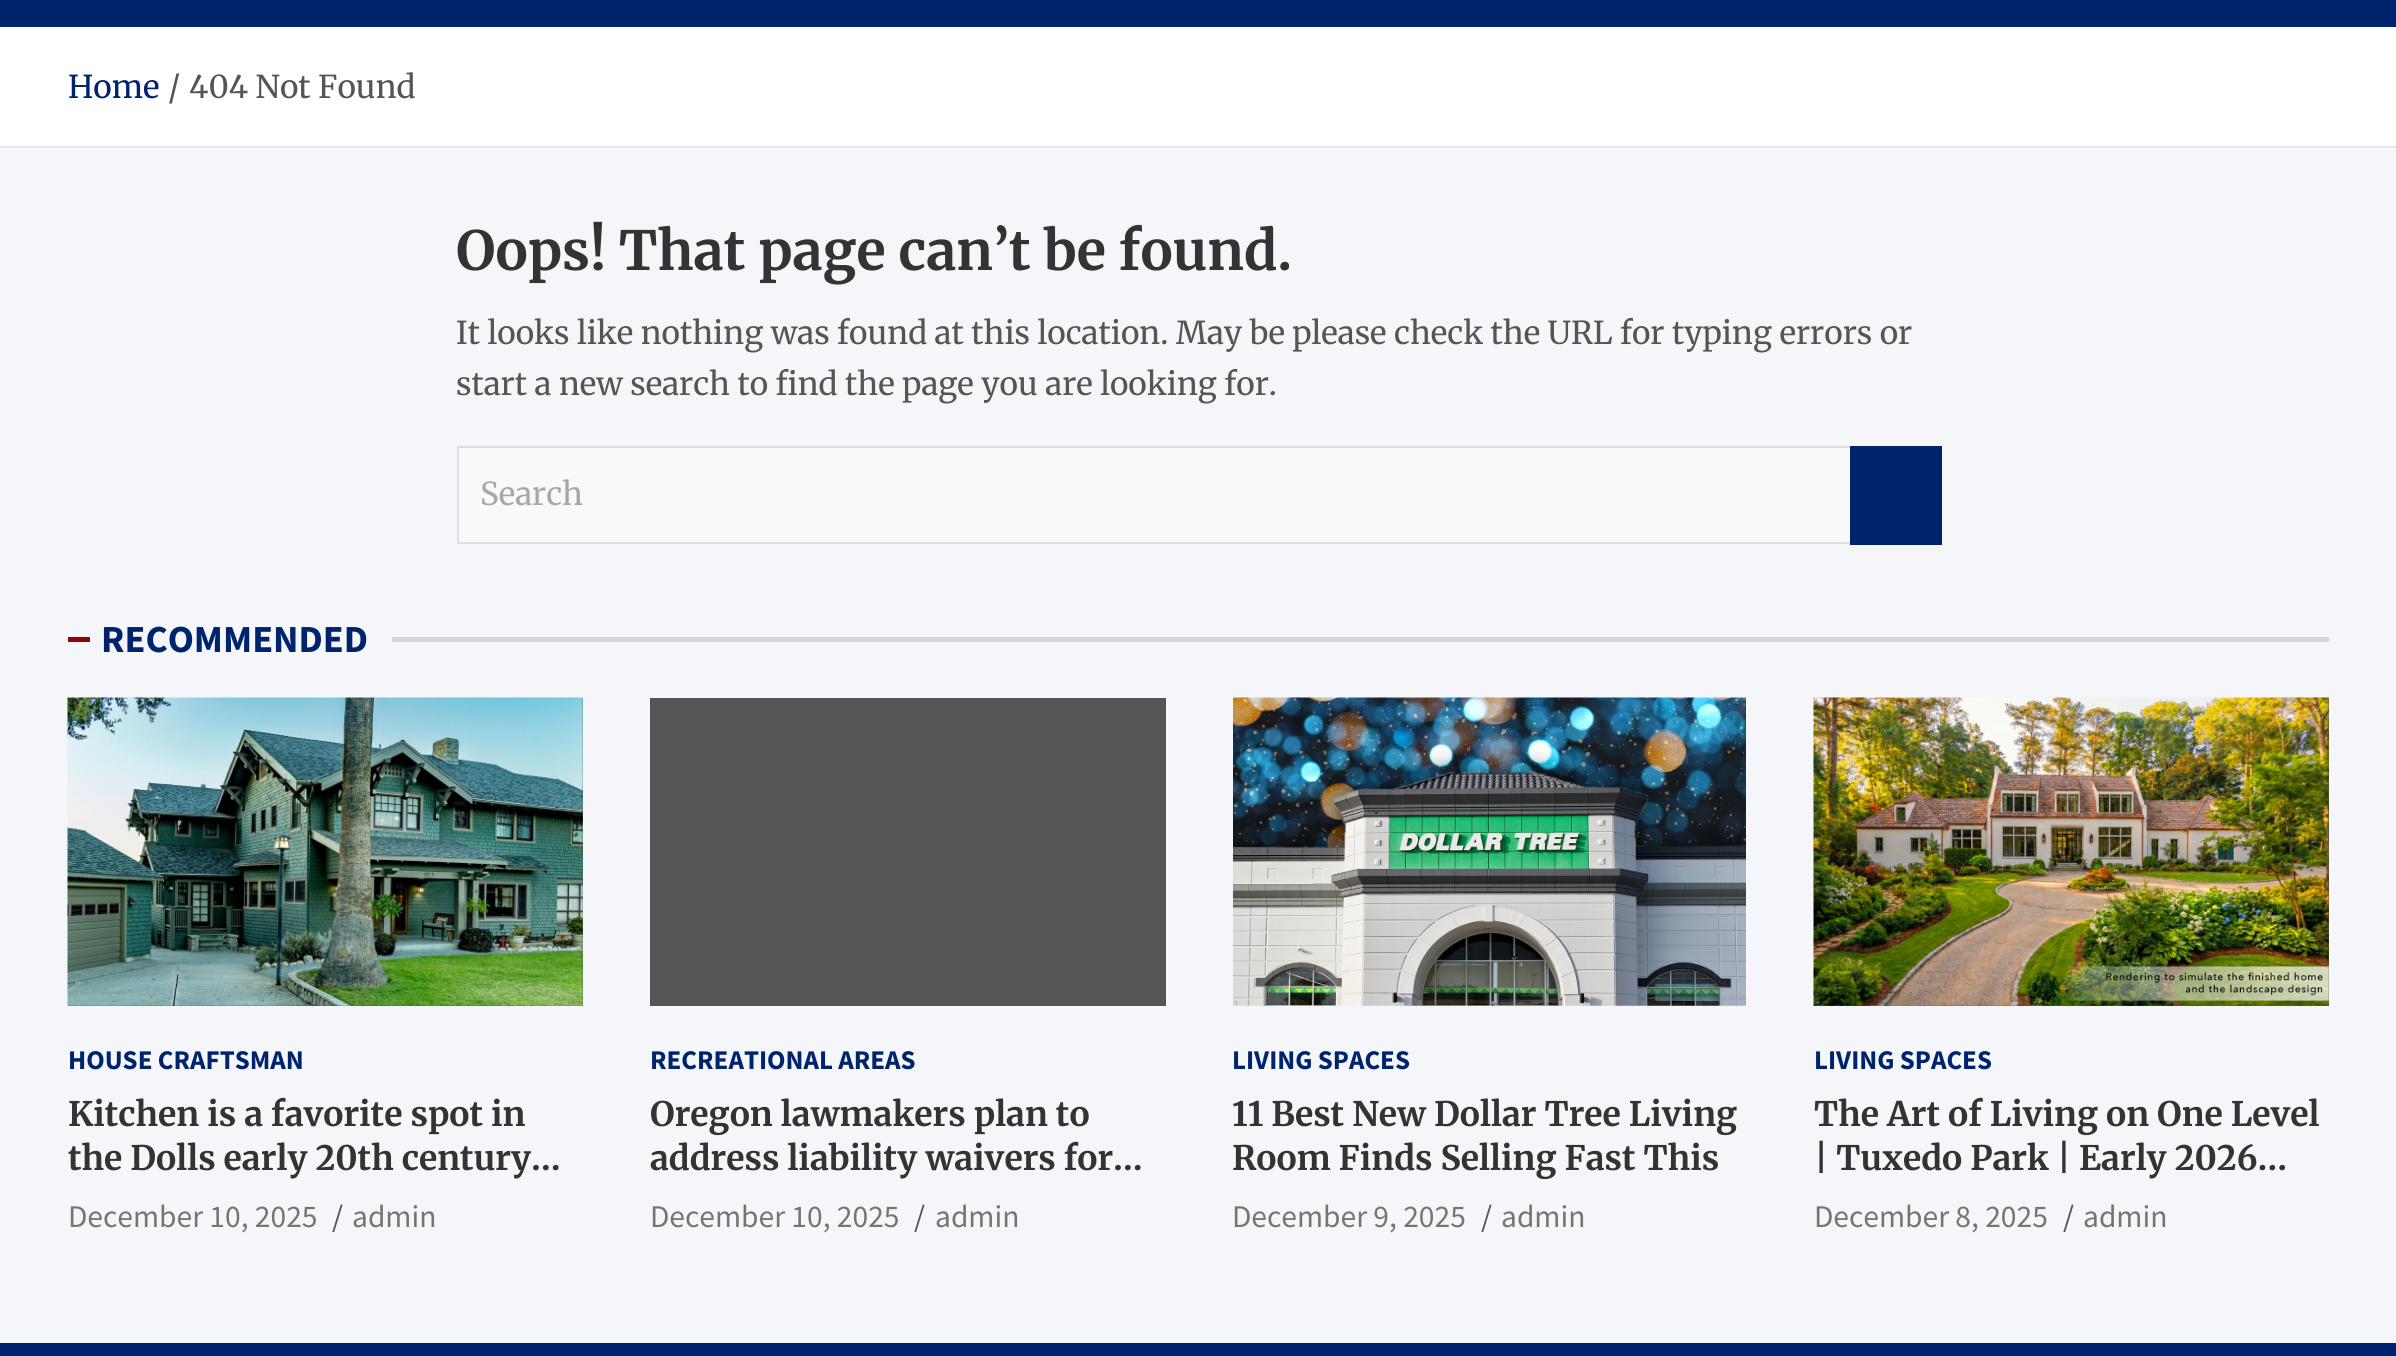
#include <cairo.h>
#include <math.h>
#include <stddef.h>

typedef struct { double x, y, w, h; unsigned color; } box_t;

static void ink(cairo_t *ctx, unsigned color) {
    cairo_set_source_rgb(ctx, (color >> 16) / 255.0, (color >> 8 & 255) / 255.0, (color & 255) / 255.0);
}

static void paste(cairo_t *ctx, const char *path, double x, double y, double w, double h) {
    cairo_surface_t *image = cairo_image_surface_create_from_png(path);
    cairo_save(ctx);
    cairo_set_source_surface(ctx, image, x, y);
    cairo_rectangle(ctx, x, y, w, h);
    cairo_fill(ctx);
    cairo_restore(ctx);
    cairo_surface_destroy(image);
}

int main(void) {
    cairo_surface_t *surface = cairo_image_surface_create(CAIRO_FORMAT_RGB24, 2396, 1356);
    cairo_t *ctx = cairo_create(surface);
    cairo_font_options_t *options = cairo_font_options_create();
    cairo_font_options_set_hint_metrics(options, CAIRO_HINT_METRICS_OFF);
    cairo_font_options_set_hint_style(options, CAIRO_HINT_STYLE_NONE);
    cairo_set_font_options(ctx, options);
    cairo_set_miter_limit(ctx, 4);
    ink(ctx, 0xF4F6F9);
    cairo_paint(ctx);
    {
        static const box_t items[] = {
            {0, 0, 2396, 27, 0x00236E},
            {0, 27, 2396, 122, 0xFFFFFF},
            {0, 146, 2396, 2, 0xE6E6E6},
        };
        for (size_t i = 0; i < sizeof items / sizeof *items; i++) {
            ink(ctx, items[i].color);
            cairo_rectangle(ctx, items[i].x, items[i].y, items[i].w, items[i].h);
            cairo_fill(ctx);
        }
    }
    cairo_select_font_face(ctx, "Merriweather", CAIRO_FONT_SLANT_NORMAL, CAIRO_FONT_WEIGHT_NORMAL);
    cairo_set_font_size(ctx, 31.5);
    ink(ctx, 0x00236E);
    cairo_move_to(ctx, 68, 98);
    cairo_show_text(ctx, "Home");
    ink(ctx, 0x555555);
    cairo_move_to(ctx, 168, 98);
    cairo_show_text(ctx, "/");
    cairo_move_to(ctx, 189, 98);
    cairo_show_text(ctx, "404 Not Found");
    cairo_select_font_face(ctx, "Merriweather", CAIRO_FONT_SLANT_NORMAL, CAIRO_FONT_WEIGHT_BOLD);
    cairo_set_font_size(ctx, 54);
    ink(ctx, 0x333333);
    cairo_move_to(ctx, 456, 270);
    cairo_show_text(ctx, "Oops! That page can’t be found.");
    cairo_select_font_face(ctx, "Merriweather", CAIRO_FONT_SLANT_NORMAL, CAIRO_FONT_WEIGHT_NORMAL);
    cairo_set_font_size(ctx, 31.5);
    ink(ctx, 0x555555);
    cairo_move_to(ctx, 456, 344);
    cairo_show_text(ctx, "It looks like nothing was found at this location. May be please check the URL for typing errors or");
    cairo_move_to(ctx, 456, 395);
    cairo_show_text(ctx, "start a new search to find the page you are looking for.");
    ink(ctx, 0xF9F9F9);
    cairo_rectangle(ctx, 459, 448, 1391, 94);
    cairo_fill(ctx);
    ink(ctx, 0xDCDDE0);
    cairo_new_path(ctx);
    cairo_move_to(ctx, 457, 446);
    cairo_line_to(ctx, 1850, 446);
    cairo_line_to(ctx, 1850, 448);
    cairo_line_to(ctx, 459, 448);
    cairo_close_path(ctx);
    cairo_fill(ctx);
    cairo_new_path(ctx);
    cairo_move_to(ctx, 1850, 544);
    cairo_line_to(ctx, 457, 544);
    cairo_line_to(ctx, 459, 542);
    cairo_line_to(ctx, 1850, 542);
    cairo_close_path(ctx);
    cairo_fill(ctx);
    cairo_set_source_rgba(ctx, 0, 0, 0, 0.1);
    cairo_new_path(ctx);
    cairo_move_to(ctx, 457, 544);
    cairo_line_to(ctx, 457, 446);
    cairo_line_to(ctx, 459, 448);
    cairo_line_to(ctx, 459, 542);
    cairo_close_path(ctx);
    cairo_fill(ctx);
    ink(ctx, 0xA7A7A7);
    cairo_move_to(ctx, 480, 505);
    cairo_show_text(ctx, "Search");
    ink(ctx, 0x00236E);
    cairo_rectangle(ctx, 1850, 446, 92, 99);
    cairo_fill(ctx);
    ink(ctx, 0x950202);
    cairo_rectangle(ctx, 68, 637, 22, 5);
    cairo_fill(ctx);
    cairo_select_font_face(ctx, "Source Sans Pro", CAIRO_FONT_SLANT_NORMAL, CAIRO_FONT_WEIGHT_BOLD);
    cairo_set_font_size(ctx, 38.25);
    ink(ctx, 0x00236E);
    cairo_move_to(ctx, 101, 652);
    cairo_show_text(ctx, "RECOMMENDED");
    ink(ctx, 0xD4D6D8);
    cairo_rectangle(ctx, 392, 637, 1937, 5);
    cairo_fill(ctx);
    ink(ctx, 0x555555);
    cairo_rectangle(ctx, 68, 698, 515, 308);
    cairo_fill(ctx);
    paste(ctx, "media/1.png", 67, 697, 516, 309);
    cairo_set_font_size(ctx, 27);
    ink(ctx, 0x00236E);
    cairo_move_to(ctx, 68, 1069);
    cairo_show_text(ctx, "HOUSE CRAFTSMAN");
    cairo_select_font_face(ctx, "Merriweather", CAIRO_FONT_SLANT_NORMAL, CAIRO_FONT_WEIGHT_BOLD);
    cairo_set_font_size(ctx, 33.75);
    ink(ctx, 0x333333);
    cairo_move_to(ctx, 68, 1126);
    cairo_show_text(ctx, "Kitchen is a favorite spot in");
    cairo_move_to(ctx, 68, 1170);
    cairo_show_text(ctx, "the Dolls early 20th century…");
    cairo_select_font_face(ctx, "Source Sans Pro", CAIRO_FONT_SLANT_NORMAL, CAIRO_FONT_WEIGHT_NORMAL);
    cairo_set_font_size(ctx, 31.5);
    ink(ctx, 0x757576);
    cairo_move_to(ctx, 68, 1227);
    cairo_show_text(ctx, "December 10, 2025");
    ink(ctx, 0x555555);
    cairo_move_to(ctx, 332, 1227);
    cairo_show_text(ctx, "/");
    ink(ctx, 0x757576);
    cairo_move_to(ctx, 352, 1227);
    cairo_show_text(ctx, "admin");
    ink(ctx, 0x555555);
    cairo_rectangle(ctx, 650, 698, 516, 308);
    cairo_fill(ctx);
    cairo_select_font_face(ctx, "Source Sans Pro", CAIRO_FONT_SLANT_NORMAL, CAIRO_FONT_WEIGHT_BOLD);
    cairo_set_font_size(ctx, 27);
    ink(ctx, 0x00236E);
    cairo_move_to(ctx, 650, 1069);
    cairo_show_text(ctx, "RECREATIONAL AREAS");
    cairo_select_font_face(ctx, "Merriweather", CAIRO_FONT_SLANT_NORMAL, CAIRO_FONT_WEIGHT_BOLD);
    cairo_set_font_size(ctx, 33.75);
    ink(ctx, 0x333333);
    cairo_move_to(ctx, 650, 1126);
    cairo_show_text(ctx, "Oregon lawmakers plan to");
    cairo_move_to(ctx, 650, 1170);
    cairo_show_text(ctx, "address liability waivers for…");
    cairo_select_font_face(ctx, "Source Sans Pro", CAIRO_FONT_SLANT_NORMAL, CAIRO_FONT_WEIGHT_NORMAL);
    cairo_set_font_size(ctx, 31.5);
    ink(ctx, 0x757576);
    cairo_move_to(ctx, 650, 1227);
    cairo_show_text(ctx, "December 10, 2025");
    ink(ctx, 0x555555);
    cairo_move_to(ctx, 914, 1227);
    cairo_show_text(ctx, "/");
    ink(ctx, 0x757576);
    cairo_move_to(ctx, 935, 1227);
    cairo_show_text(ctx, "admin");
    paste(ctx, "media/2.png", 1233, 697, 513, 309);
    cairo_select_font_face(ctx, "Source Sans Pro", CAIRO_FONT_SLANT_NORMAL, CAIRO_FONT_WEIGHT_BOLD);
    cairo_set_font_size(ctx, 27);
    ink(ctx, 0x00236E);
    cairo_move_to(ctx, 1232, 1069);
    cairo_show_text(ctx, "LIVING SPACES");
    cairo_select_font_face(ctx, "Merriweather", CAIRO_FONT_SLANT_NORMAL, CAIRO_FONT_WEIGHT_BOLD);
    cairo_set_font_size(ctx, 33.75);
    ink(ctx, 0x333333);
    cairo_move_to(ctx, 1232, 1126);
    cairo_show_text(ctx, "11 Best New Dollar Tree Living");
    cairo_move_to(ctx, 1232, 1170);
    cairo_show_text(ctx, "Room Finds Selling Fast This");
    cairo_select_font_face(ctx, "Source Sans Pro", CAIRO_FONT_SLANT_NORMAL, CAIRO_FONT_WEIGHT_NORMAL);
    cairo_set_font_size(ctx, 31.5);
    ink(ctx, 0x757576);
    cairo_move_to(ctx, 1232, 1227);
    cairo_show_text(ctx, "December 9, 2025");
    ink(ctx, 0x555555);
    cairo_move_to(ctx, 1481, 1227);
    cairo_show_text(ctx, "/");
    ink(ctx, 0x757576);
    cairo_move_to(ctx, 1501, 1227);
    cairo_show_text(ctx, "admin");
    ink(ctx, 0x555555);
    cairo_rectangle(ctx, 1814, 698, 515, 308);
    cairo_fill(ctx);
    paste(ctx, "media/3.png", 1813, 697, 516, 309);
    cairo_select_font_face(ctx, "Source Sans Pro", CAIRO_FONT_SLANT_NORMAL, CAIRO_FONT_WEIGHT_BOLD);
    cairo_set_font_size(ctx, 27);
    ink(ctx, 0x00236E);
    cairo_move_to(ctx, 1814, 1069);
    cairo_show_text(ctx, "LIVING SPACES");
    cairo_select_font_face(ctx, "Merriweather", CAIRO_FONT_SLANT_NORMAL, CAIRO_FONT_WEIGHT_BOLD);
    cairo_set_font_size(ctx, 33.75);
    ink(ctx, 0x333333);
    cairo_move_to(ctx, 1814, 1126);
    cairo_show_text(ctx, "The Art of Living on One Level");
    cairo_move_to(ctx, 1814, 1170);
    cairo_show_text(ctx, "| Tuxedo Park | Early 2026…");
    cairo_select_font_face(ctx, "Source Sans Pro", CAIRO_FONT_SLANT_NORMAL, CAIRO_FONT_WEIGHT_NORMAL);
    cairo_set_font_size(ctx, 31.5);
    ink(ctx, 0x757576);
    cairo_move_to(ctx, 1814, 1227);
    cairo_show_text(ctx, "December 8, 2025");
    ink(ctx, 0x555555);
    cairo_move_to(ctx, 2063, 1227);
    cairo_show_text(ctx, "/");
    ink(ctx, 0x757576);
    cairo_move_to(ctx, 2083, 1227);
    cairo_show_text(ctx, "admin");
    ink(ctx, 0x00236E);
    cairo_rectangle(ctx, 0, 1343, 2396, 13);
    cairo_fill(ctx);
    cairo_surface_write_to_png(surface, "image.png");
    cairo_font_options_destroy(options);
    cairo_destroy(ctx);
    cairo_surface_destroy(surface);
    return 0;
}
